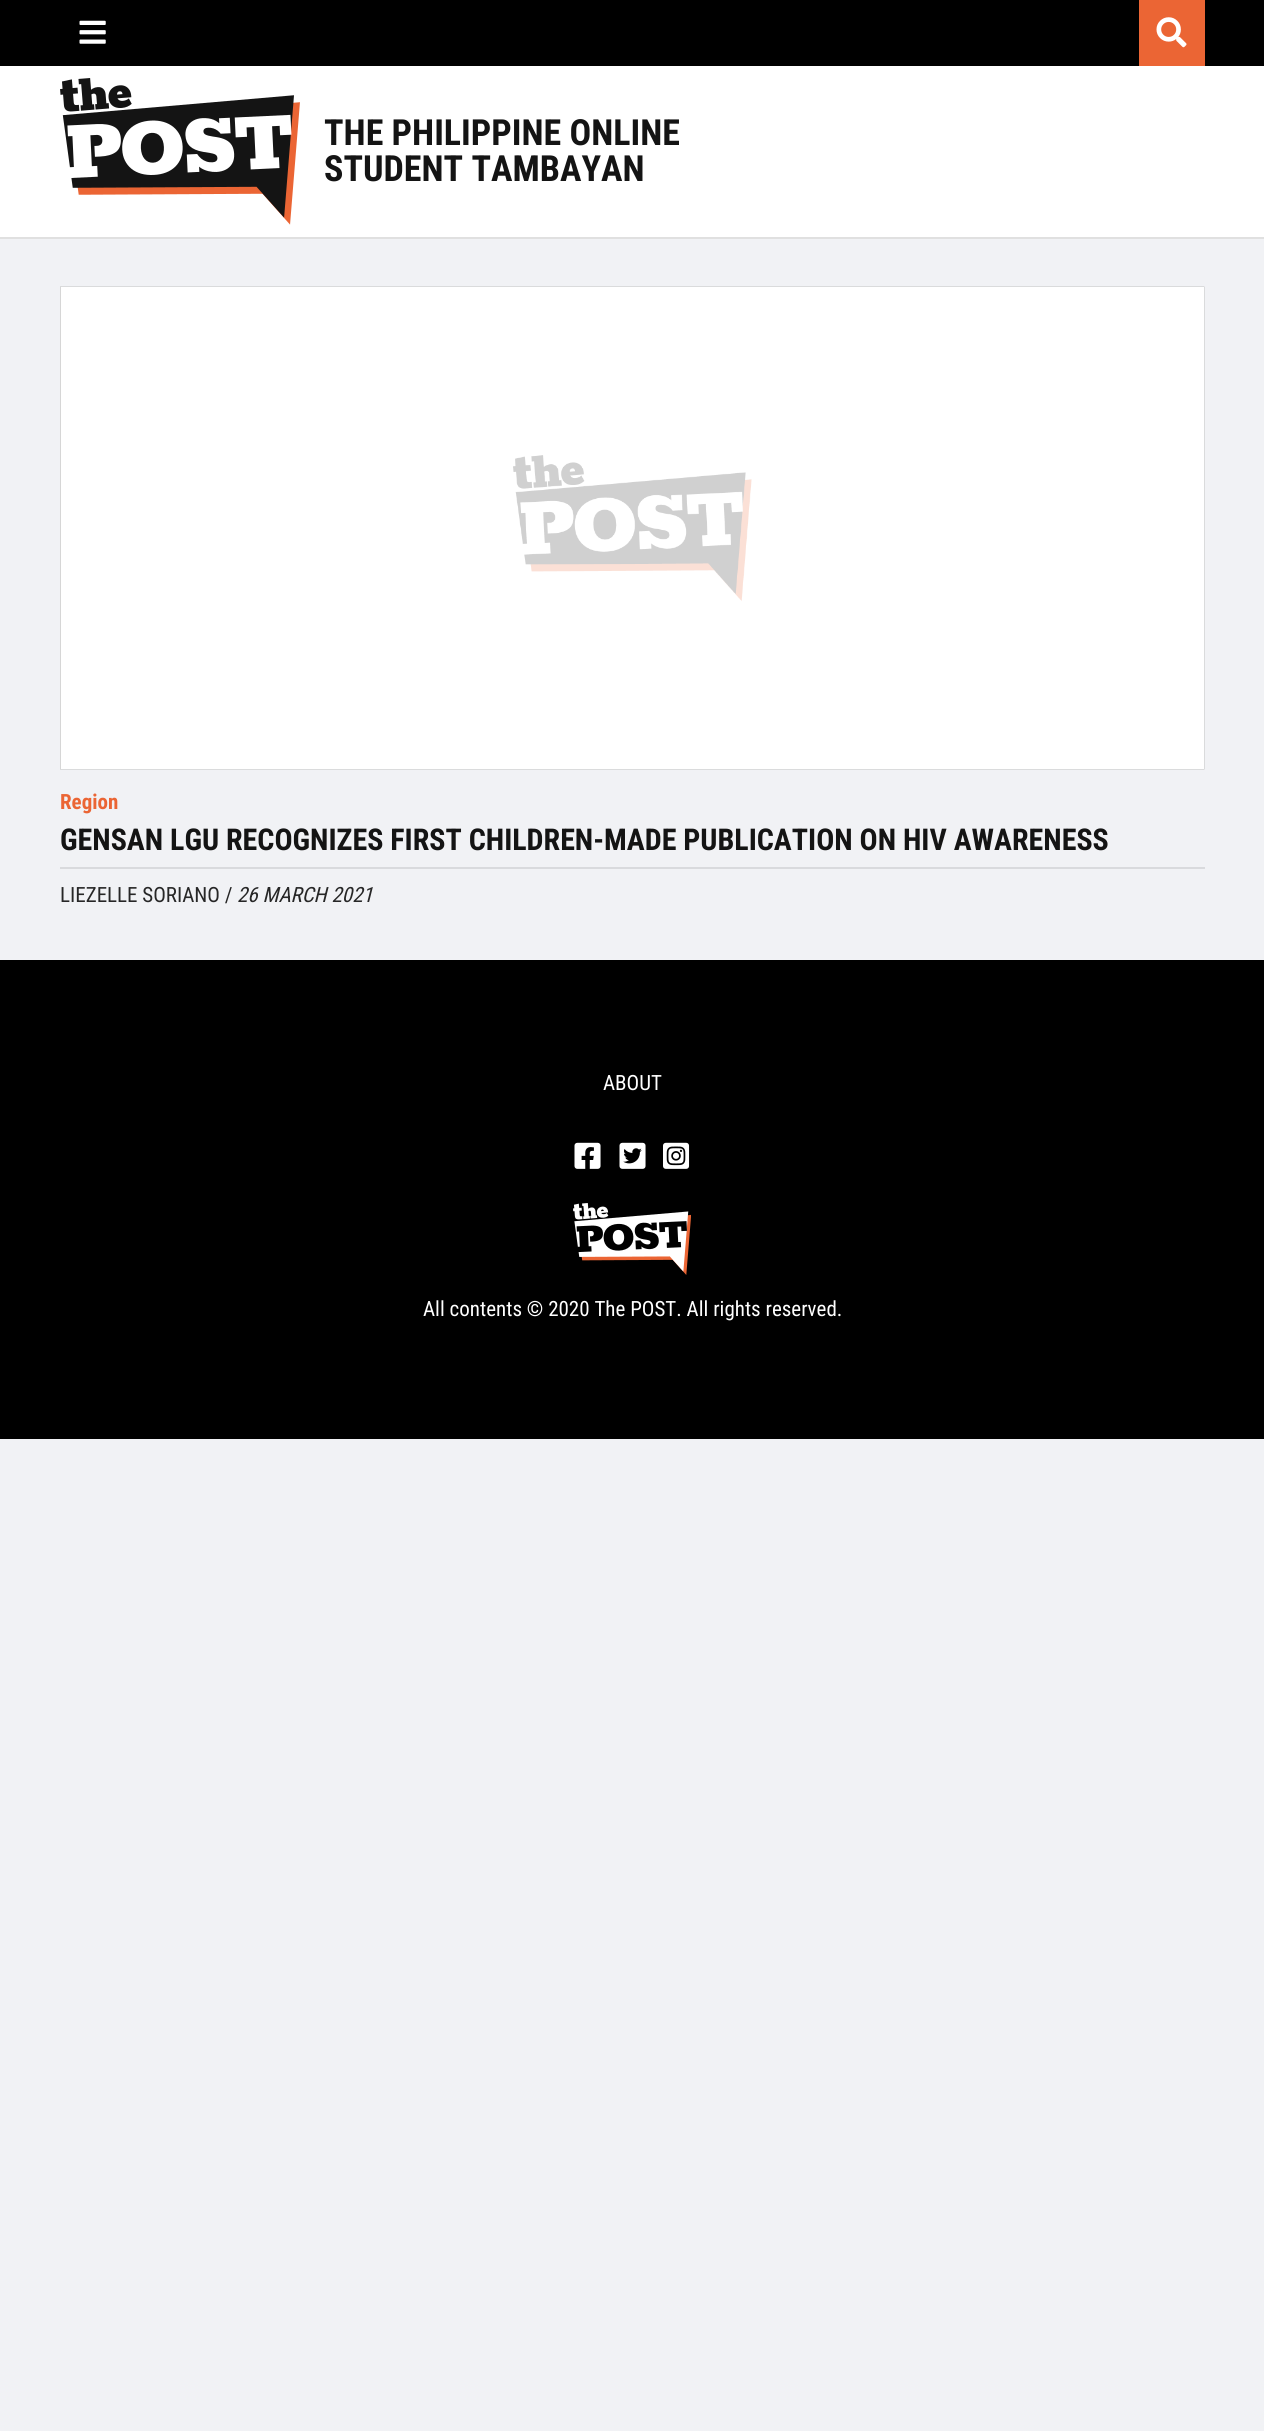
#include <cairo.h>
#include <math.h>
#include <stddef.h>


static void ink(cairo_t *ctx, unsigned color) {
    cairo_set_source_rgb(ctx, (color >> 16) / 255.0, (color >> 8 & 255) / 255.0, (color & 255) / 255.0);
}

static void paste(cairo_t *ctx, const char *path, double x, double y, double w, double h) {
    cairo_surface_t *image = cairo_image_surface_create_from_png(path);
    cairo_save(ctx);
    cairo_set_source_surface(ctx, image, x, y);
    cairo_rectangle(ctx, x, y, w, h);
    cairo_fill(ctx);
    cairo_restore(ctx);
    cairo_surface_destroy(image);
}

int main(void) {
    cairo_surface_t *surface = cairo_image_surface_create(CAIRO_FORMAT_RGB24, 1264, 2431);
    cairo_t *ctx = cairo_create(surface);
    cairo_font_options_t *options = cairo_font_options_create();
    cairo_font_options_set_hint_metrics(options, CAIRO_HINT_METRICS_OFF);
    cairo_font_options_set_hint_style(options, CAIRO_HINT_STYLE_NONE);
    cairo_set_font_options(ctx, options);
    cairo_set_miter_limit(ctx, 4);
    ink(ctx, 0xF1F2F5);
    cairo_paint(ctx);
    ink(ctx, 0x000000);
    cairo_rectangle(ctx, 0, 0, 1264, 66);
    cairo_fill(ctx);
    paste(ctx, "media/1.png", 79, 20, 27, 24);
    ink(ctx, 0xEB6534);
    cairo_rectangle(ctx, 1139, 0, 66, 66);
    cairo_fill(ctx);
    paste(ctx, "media/2.png", 1156, 17, 31, 31);
    ink(ctx, 0xFFFFFF);
    cairo_rectangle(ctx, 0, 66, 1264, 171);
    cairo_fill(ctx);
    ink(ctx, 0xE0E0E0);
    cairo_rectangle(ctx, 0, 237, 1264, 2);
    cairo_fill(ctx);
    paste(ctx, "media/3.png", 60, 78, 240, 147);
    cairo_select_font_face(ctx, "Roboto Condensed", CAIRO_FONT_SLANT_NORMAL, CAIRO_FONT_WEIGHT_BOLD);
    cairo_set_font_size(ctx, 36);
    ink(ctx, 0x141414);
    cairo_move_to(ctx, 324, 145);
    cairo_show_text(ctx, "THE PHILIPPINE ONLINE");
    cairo_move_to(ctx, 324, 181);
    cairo_show_text(ctx, "STUDENT TAMBAYAN");
    paste(ctx, "media/4.png", 60, 286, 1145, 484);
    cairo_set_font_size(ctx, 21);
    ink(ctx, 0xEB6534);
    cairo_move_to(ctx, 60, 809);
    cairo_show_text(ctx, "Region");
    cairo_set_font_size(ctx, 30);
    ink(ctx, 0x141414);
    cairo_move_to(ctx, 60, 850);
    cairo_show_text(ctx, "GENSAN LGU RECOGNIZES FIRST CHILDREN-MADE PUBLICATION ON HIV AWARENESS");
    ink(ctx, 0xD9DADD);
    cairo_rectangle(ctx, 60, 867, 1145, 2);
    cairo_fill(ctx);
    cairo_select_font_face(ctx, "Roboto Condensed", CAIRO_FONT_SLANT_NORMAL, CAIRO_FONT_WEIGHT_NORMAL);
    cairo_set_font_size(ctx, 21);
    ink(ctx, 0x272727);
    cairo_move_to(ctx, 60, 902);
    cairo_show_text(ctx, "LIEZELLE SORIANO /");
    cairo_select_font_face(ctx, "Roboto Condensed", CAIRO_FONT_SLANT_ITALIC, CAIRO_FONT_WEIGHT_NORMAL);
    cairo_move_to(ctx, 237, 902);
    cairo_show_text(ctx, "26 MARCH 2021");
    ink(ctx, 0x000000);
    cairo_rectangle(ctx, 0, 960, 1264, 479);
    cairo_fill(ctx);
    cairo_select_font_face(ctx, "Roboto Condensed", CAIRO_FONT_SLANT_NORMAL, CAIRO_FONT_WEIGHT_NORMAL);
    ink(ctx, 0xFFFFFF);
    cairo_move_to(ctx, 603, 1090);
    cairo_show_text(ctx, "ABOUT");
    paste(ctx, "media/5.png", 574, 1142, 27, 27);
    paste(ctx, "media/6.png", 619, 1142, 27, 27);
    paste(ctx, "media/7.png", 663, 1142, 27, 27);
    paste(ctx, "media/8.png", 573, 1203, 118, 72);
    cairo_move_to(ctx, 423, 1316);
    cairo_show_text(ctx, "All contents © 2020 The POST. All rights reserved.");
    cairo_surface_write_to_png(surface, "image.png");
    cairo_font_options_destroy(options);
    cairo_destroy(ctx);
    cairo_surface_destroy(surface);
    return 0;
}
